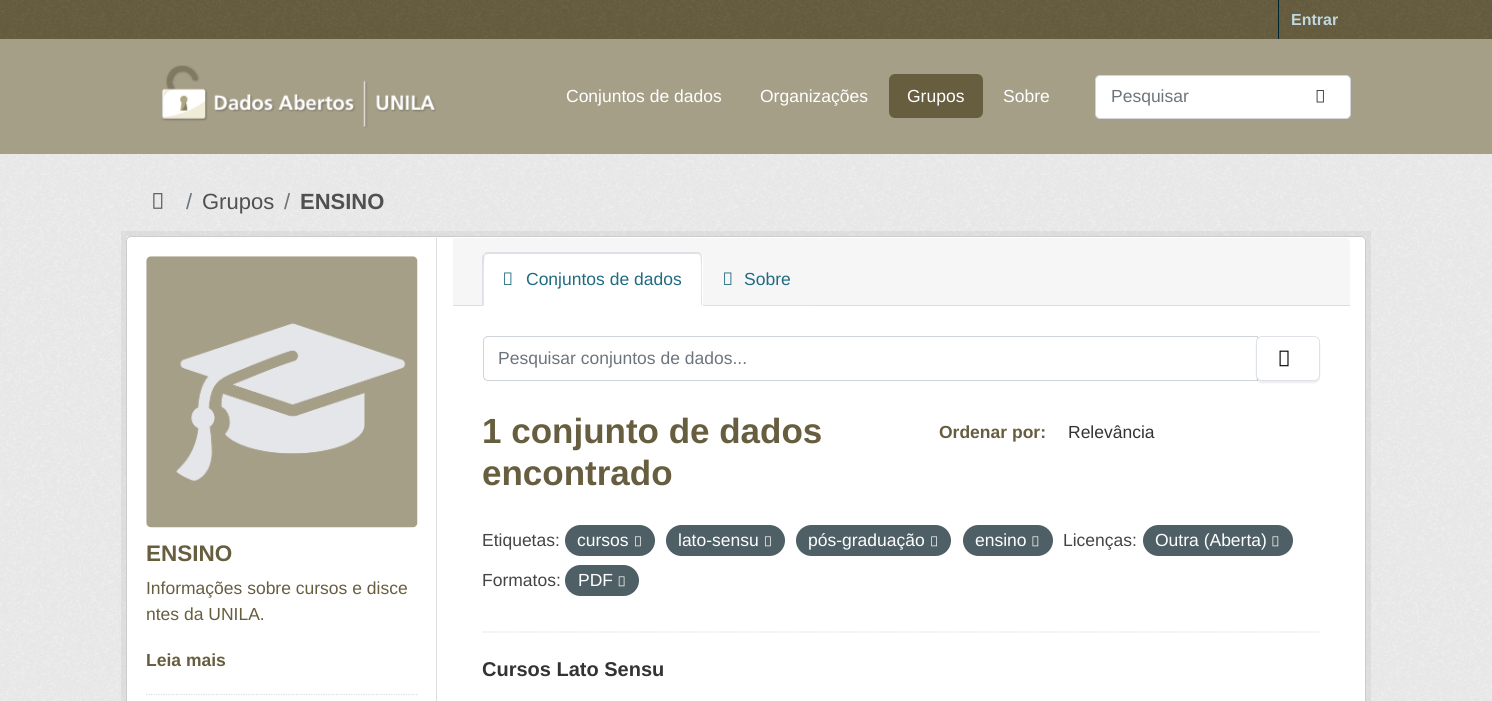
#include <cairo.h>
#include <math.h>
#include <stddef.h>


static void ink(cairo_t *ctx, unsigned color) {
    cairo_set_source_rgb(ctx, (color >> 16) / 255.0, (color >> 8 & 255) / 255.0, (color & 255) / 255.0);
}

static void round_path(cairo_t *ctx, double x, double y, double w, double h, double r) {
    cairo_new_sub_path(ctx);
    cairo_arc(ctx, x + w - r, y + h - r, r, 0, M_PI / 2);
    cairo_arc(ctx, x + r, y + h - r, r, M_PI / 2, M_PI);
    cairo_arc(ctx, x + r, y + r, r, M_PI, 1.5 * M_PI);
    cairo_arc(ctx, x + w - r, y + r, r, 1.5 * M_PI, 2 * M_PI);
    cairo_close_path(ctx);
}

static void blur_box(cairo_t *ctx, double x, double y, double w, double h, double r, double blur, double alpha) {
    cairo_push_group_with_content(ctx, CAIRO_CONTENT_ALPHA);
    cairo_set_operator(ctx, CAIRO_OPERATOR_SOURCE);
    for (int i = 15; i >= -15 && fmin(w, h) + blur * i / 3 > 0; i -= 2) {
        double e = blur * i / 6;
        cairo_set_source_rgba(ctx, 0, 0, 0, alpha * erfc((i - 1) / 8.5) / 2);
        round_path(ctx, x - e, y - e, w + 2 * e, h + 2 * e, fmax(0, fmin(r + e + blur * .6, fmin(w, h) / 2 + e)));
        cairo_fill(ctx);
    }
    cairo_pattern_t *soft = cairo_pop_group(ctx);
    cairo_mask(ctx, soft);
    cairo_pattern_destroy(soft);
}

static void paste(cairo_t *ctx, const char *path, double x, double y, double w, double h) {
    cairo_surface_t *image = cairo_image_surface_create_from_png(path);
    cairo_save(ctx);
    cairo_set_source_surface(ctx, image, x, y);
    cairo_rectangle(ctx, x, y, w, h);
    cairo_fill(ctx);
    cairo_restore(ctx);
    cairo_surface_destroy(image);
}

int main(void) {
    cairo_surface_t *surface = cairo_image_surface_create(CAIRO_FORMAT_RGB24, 1492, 701);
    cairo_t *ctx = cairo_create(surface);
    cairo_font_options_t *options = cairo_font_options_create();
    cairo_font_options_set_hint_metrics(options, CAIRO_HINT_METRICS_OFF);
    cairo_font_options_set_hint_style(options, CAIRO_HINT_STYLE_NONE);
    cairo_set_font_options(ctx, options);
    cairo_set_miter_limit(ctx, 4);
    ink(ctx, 0x675D3F);
    cairo_paint(ctx);
    paste(ctx, "media/1.png", 0, 0, 1492, 38);
    ink(ctx, 0x00232E);
    cairo_rectangle(ctx, 1278, 0, 1, 39);
    cairo_fill(ctx);
    cairo_select_font_face(ctx, "Liberation Sans", CAIRO_FONT_SLANT_NORMAL, CAIRO_FONT_WEIGHT_BOLD);
    cairo_set_font_size(ctx, 16);
    ink(ctx, 0xBFD7DE);
    cairo_move_to(ctx, 1291, 25);
    cairo_show_text(ctx, "Entrar");
    ink(ctx, 0xA69F88);
    cairo_rectangle(ctx, 0, 39, 1492, 115);
    cairo_fill(ctx);
    paste(ctx, "media/2.png", 162, 65, 275, 63);
    cairo_select_font_face(ctx, "Liberation Sans", CAIRO_FONT_SLANT_NORMAL, CAIRO_FONT_WEIGHT_NORMAL);
    cairo_set_font_size(ctx, 17.5);
    ink(ctx, 0xFFFFFF);
    cairo_move_to(ctx, 566, 102);
    cairo_show_text(ctx, "Conjuntos de dados");
    cairo_move_to(ctx, 760, 102);
    cairo_show_text(ctx, "Organizações");
    ink(ctx, 0x675D3F);
    round_path(ctx, 889, 74, 94, 44, 6);
    cairo_fill(ctx);
    ink(ctx, 0xFFFFFF);
    cairo_move_to(ctx, 907, 102);
    cairo_show_text(ctx, "Grupos");
    cairo_move_to(ctx, 1003, 102);
    cairo_show_text(ctx, "Sobre");
    round_path(ctx, 1095.5, 75.5, 255, 43, 4.5);
    cairo_fill_preserve(ctx);
    ink(ctx, 0xCED4DA);
    cairo_set_line_width(ctx, 1);
    cairo_stroke(ctx);
    ink(ctx, 0x6C757D);
    cairo_move_to(ctx, 1111, 102);
    cairo_show_text(ctx, "Pesquisar");
    paste(ctx, "media/3.png", 1316, 90, 8, 13);
    ink(ctx, 0xEEEEEE);
    cairo_rectangle(ctx, 0, 154, 1492, 547);
    cairo_fill(ctx);
    paste(ctx, "media/4.png", 0, 154, 1492, 547);
    paste(ctx, "media/5.png", 153, 193, 10, 16);
    cairo_set_font_size(ctx, 22);
    ink(ctx, 0x6C757D);
    cairo_move_to(ctx, 186, 209);
    cairo_show_text(ctx, "/");
    ink(ctx, 0x505050);
    cairo_move_to(ctx, 202, 209);
    cairo_show_text(ctx, "Grupos");
    ink(ctx, 0x6C757D);
    cairo_move_to(ctx, 284, 209);
    cairo_show_text(ctx, "/");
    cairo_select_font_face(ctx, "Liberation Sans", CAIRO_FONT_SLANT_NORMAL, CAIRO_FONT_WEIGHT_BOLD);
    ink(ctx, 0x505050);
    cairo_move_to(ctx, 300, 209);
    cairo_show_text(ctx, "ENSINO");
    cairo_rectangle(ctx, 123.5, 233.5, 1245, 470);
    cairo_set_source_rgba(ctx, 0, 0, 0, 0.05);
    cairo_set_line_width(ctx, 5);
    cairo_stroke(ctx);
    ink(ctx, 0xFFFFFF);
    round_path(ctx, 126.5, 236.5, 1239, 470, 4.5);
    cairo_fill_preserve(ctx);
    ink(ctx, 0xCCCCCC);
    cairo_set_line_width(ctx, 1);
    cairo_stroke(ctx);
    paste(ctx, "media/6.png", 146, 256, 272, 272);
    cairo_set_font_size(ctx, 22.5);
    ink(ctx, 0x675D3F);
    cairo_move_to(ctx, 146, 561);
    cairo_show_text(ctx, "ENSINO");
    cairo_select_font_face(ctx, "Liberation Sans", CAIRO_FONT_SLANT_NORMAL, CAIRO_FONT_WEIGHT_NORMAL);
    cairo_set_font_size(ctx, 17.5);
    cairo_move_to(ctx, 146, 594);
    cairo_show_text(ctx, "Informações sobre cursos e disce");
    cairo_move_to(ctx, 146, 620);
    cairo_show_text(ctx, "ntes da UNILA.");
    cairo_select_font_face(ctx, "Liberation Sans", CAIRO_FONT_SLANT_NORMAL, CAIRO_FONT_WEIGHT_BOLD);
    cairo_move_to(ctx, 146, 666);
    cairo_show_text(ctx, "Leia mais");
    cairo_new_path(ctx);
    cairo_move_to(ctx, 146, 694.5);
    cairo_line_to(ctx, 417.5, 694.5);
    ink(ctx, 0xDDDDDD);
    cairo_set_line_width(ctx, 1.2);
    cairo_set_dash(ctx, (double[]){1.25, 1.25}, 2, 0);
    cairo_stroke(ctx);
    cairo_rectangle(ctx, 436, 238, 1, 463);
    cairo_fill(ctx);
    ink(ctx, 0xF6F6F6);
    cairo_new_path(ctx);
    cairo_move_to(ctx, 453, 238);
    cairo_line_to(ctx, 1346, 238);
    cairo_curve_to(ctx, 1348, 238, 1350, 240, 1350, 242);
    cairo_line_to(ctx, 1350, 306);
    cairo_line_to(ctx, 453, 306);
    cairo_close_path(ctx);
    cairo_fill(ctx);
    ink(ctx, 0xDDDDDD);
    cairo_rectangle(ctx, 453, 305, 897, 1);
    cairo_fill(ctx);
    ink(ctx, 0xDEE2E6);
    cairo_rectangle(ctx, 703, 305, 108, 1);
    cairo_fill(ctx);
    ink(ctx, 0xFFFFFF);
    cairo_new_path(ctx);
    cairo_move_to(ctx, 488, 253);
    cairo_line_to(ctx, 698, 253);
    cairo_curve_to(ctx, 701, 253, 703, 255, 703, 258);
    cairo_line_to(ctx, 703, 306);
    cairo_line_to(ctx, 483, 306);
    cairo_line_to(ctx, 483, 258);
    cairo_curve_to(ctx, 483, 255, 485, 253, 488, 253);
    cairo_close_path(ctx);
    cairo_fill(ctx);
    ink(ctx, 0xDEE2E6);
    cairo_new_path(ctx);
    cairo_move_to(ctx, 488, 254);
    cairo_line_to(ctx, 485, 255);
    cairo_line_to(ctx, 484, 254);
    cairo_line_to(ctx, 486, 252);
    cairo_line_to(ctx, 699, 252);
    cairo_line_to(ctx, 701, 254);
    cairo_line_to(ctx, 700, 255);
    cairo_line_to(ctx, 698, 254);
    cairo_close_path(ctx);
    cairo_fill(ctx);
    cairo_new_path(ctx);
    cairo_move_to(ctx, 701, 254);
    cairo_curve_to(ctx, 702, 255, 702, 257, 702, 258);
    cairo_line_to(ctx, 702, 306);
    cairo_line_to(ctx, 701, 305);
    cairo_curve_to(ctx, 701, 299, 702, 257, 700, 255);
    cairo_close_path(ctx);
    cairo_fill(ctx);
    cairo_new_path(ctx);
    cairo_move_to(ctx, 482, 256);
    cairo_line_to(ctx, 484, 254);
    cairo_line_to(ctx, 485, 255);
    cairo_curve_to(ctx, 483, 257, 484, 299, 484, 305);
    cairo_line_to(ctx, 482, 306);
    cairo_close_path(ctx);
    cairo_fill(ctx);
    paste(ctx, "media/7.png", 504, 272, 8, 13);
    cairo_select_font_face(ctx, "Liberation Sans", CAIRO_FONT_SLANT_NORMAL, CAIRO_FONT_WEIGHT_NORMAL);
    ink(ctx, 0x206B82);
    cairo_move_to(ctx, 526, 285);
    cairo_show_text(ctx, "Conjuntos de dados");
    paste(ctx, "media/8.png", 724, 272, 8, 13);
    cairo_move_to(ctx, 744, 285);
    cairo_show_text(ctx, "Sobre");
    cairo_new_path(ctx);
    cairo_move_to(ctx, 482.5, 632);
    cairo_line_to(ctx, 1320, 632);
    ink(ctx, 0xDDDDDD);
    cairo_stroke(ctx);
    cairo_new_path(ctx);
    cairo_move_to(ctx, 488, 336.5);
    cairo_line_to(ctx, 1257.5, 336.5);
    cairo_line_to(ctx, 1257.5, 380.5);
    cairo_line_to(ctx, 488, 380.5);
    cairo_curve_to(ctx, 485.5, 380.5, 483.5, 378.5, 483.5, 376);
    cairo_line_to(ctx, 483.5, 341);
    cairo_curve_to(ctx, 483.5, 338.5, 485.5, 336.5, 488, 336.5);
    cairo_close_path(ctx);
    ink(ctx, 0xCED4DA);
    cairo_set_line_width(ctx, 1);
    cairo_set_dash(ctx, NULL, 0, 0);
    cairo_stroke(ctx);
    ink(ctx, 0x6C757D);
    cairo_move_to(ctx, 498, 364);
    cairo_show_text(ctx, "Pesquisar conjuntos de dados...");
    ink(ctx, 0x000000);
    blur_box(ctx, 1256, 338, 64, 45, 6, 0.5, 0.07);
    ink(ctx, 0xFFFFFF);
    round_path(ctx, 1256.5, 336.5, 63, 44, 5.5);
    cairo_fill_preserve(ctx);
    ink(ctx, 0xDEE2E6);
    cairo_stroke(ctx);
    paste(ctx, "media/9.png", 1279, 350, 10, 17);
    cairo_select_font_face(ctx, "Liberation Sans", CAIRO_FONT_SLANT_NORMAL, CAIRO_FONT_WEIGHT_BOLD);
    cairo_set_font_size(ctx, 35);
    ink(ctx, 0x675D3F);
    cairo_move_to(ctx, 482, 443);
    cairo_show_text(ctx, "1 conjunto de dados");
    cairo_move_to(ctx, 482, 485);
    cairo_show_text(ctx, "encontrado");
    cairo_set_font_size(ctx, 17.5);
    cairo_move_to(ctx, 939, 438);
    cairo_show_text(ctx, "Ordenar por:");
    cairo_select_font_face(ctx, "Liberation Sans", CAIRO_FONT_SLANT_NORMAL, CAIRO_FONT_WEIGHT_NORMAL);
    ink(ctx, 0x333333);
    cairo_move_to(ctx, 1068, 438);
    cairo_show_text(ctx, "Relevância");
    ink(ctx, 0x444444);
    cairo_move_to(ctx, 482, 546);
    cairo_show_text(ctx, "Etiquetas:");
    ink(ctx, 0x4E5F65);
    round_path(ctx, 565, 525, 90, 31, 15.5);
    cairo_fill(ctx);
    ink(ctx, 0xFFFFFF);
    cairo_move_to(ctx, 577, 546);
    cairo_show_text(ctx, "cursos");
    paste(ctx, "media/10.png", 635, 536, 6, 11);
    ink(ctx, 0x4E5F65);
    round_path(ctx, 666, 525, 119, 31, 15.5);
    cairo_fill(ctx);
    ink(ctx, 0xFFFFFF);
    cairo_move_to(ctx, 678, 546);
    cairo_show_text(ctx, "lato-sensu");
    paste(ctx, "media/10.png", 765, 536, 6, 11);
    ink(ctx, 0x4E5F65);
    round_path(ctx, 796, 525, 155, 31, 15.5);
    cairo_fill(ctx);
    ink(ctx, 0xFFFFFF);
    cairo_move_to(ctx, 808, 546);
    cairo_show_text(ctx, "pós-graduação");
    paste(ctx, "media/11.png", 931, 536, 6, 11);
    ink(ctx, 0x4E5F65);
    round_path(ctx, 963, 525, 90, 31, 15.5);
    cairo_fill(ctx);
    ink(ctx, 0xFFFFFF);
    cairo_move_to(ctx, 975, 546);
    cairo_show_text(ctx, "ensino");
    paste(ctx, "media/12.png", 1032, 536, 7, 11);
    ink(ctx, 0x444444);
    cairo_move_to(ctx, 1063, 546);
    cairo_show_text(ctx, "Licenças:");
    ink(ctx, 0x4E5F65);
    round_path(ctx, 1143, 525, 150, 31, 15.5);
    cairo_fill(ctx);
    ink(ctx, 0xFFFFFF);
    cairo_move_to(ctx, 1155, 546);
    cairo_show_text(ctx, "Outra (Aberta)");
    paste(ctx, "media/12.png", 1272, 536, 7, 11);
    ink(ctx, 0x444444);
    cairo_move_to(ctx, 482, 586);
    cairo_show_text(ctx, "Formatos:");
    ink(ctx, 0x4E5F65);
    round_path(ctx, 565, 565, 74, 31, 15.5);
    cairo_fill(ctx);
    ink(ctx, 0xFFFFFF);
    cairo_move_to(ctx, 578, 586);
    cairo_show_text(ctx, "PDF");
    paste(ctx, "media/13.png", 618, 576, 7, 11);
    cairo_select_font_face(ctx, "Liberation Sans", CAIRO_FONT_SLANT_NORMAL, CAIRO_FONT_WEIGHT_BOLD);
    cairo_set_font_size(ctx, 20);
    ink(ctx, 0x333333);
    cairo_move_to(ctx, 482, 676);
    cairo_show_text(ctx, "Cursos Lato Sensu");
    cairo_surface_write_to_png(surface, "image.png");
    cairo_font_options_destroy(options);
    cairo_destroy(ctx);
    cairo_surface_destroy(surface);
    return 0;
}
